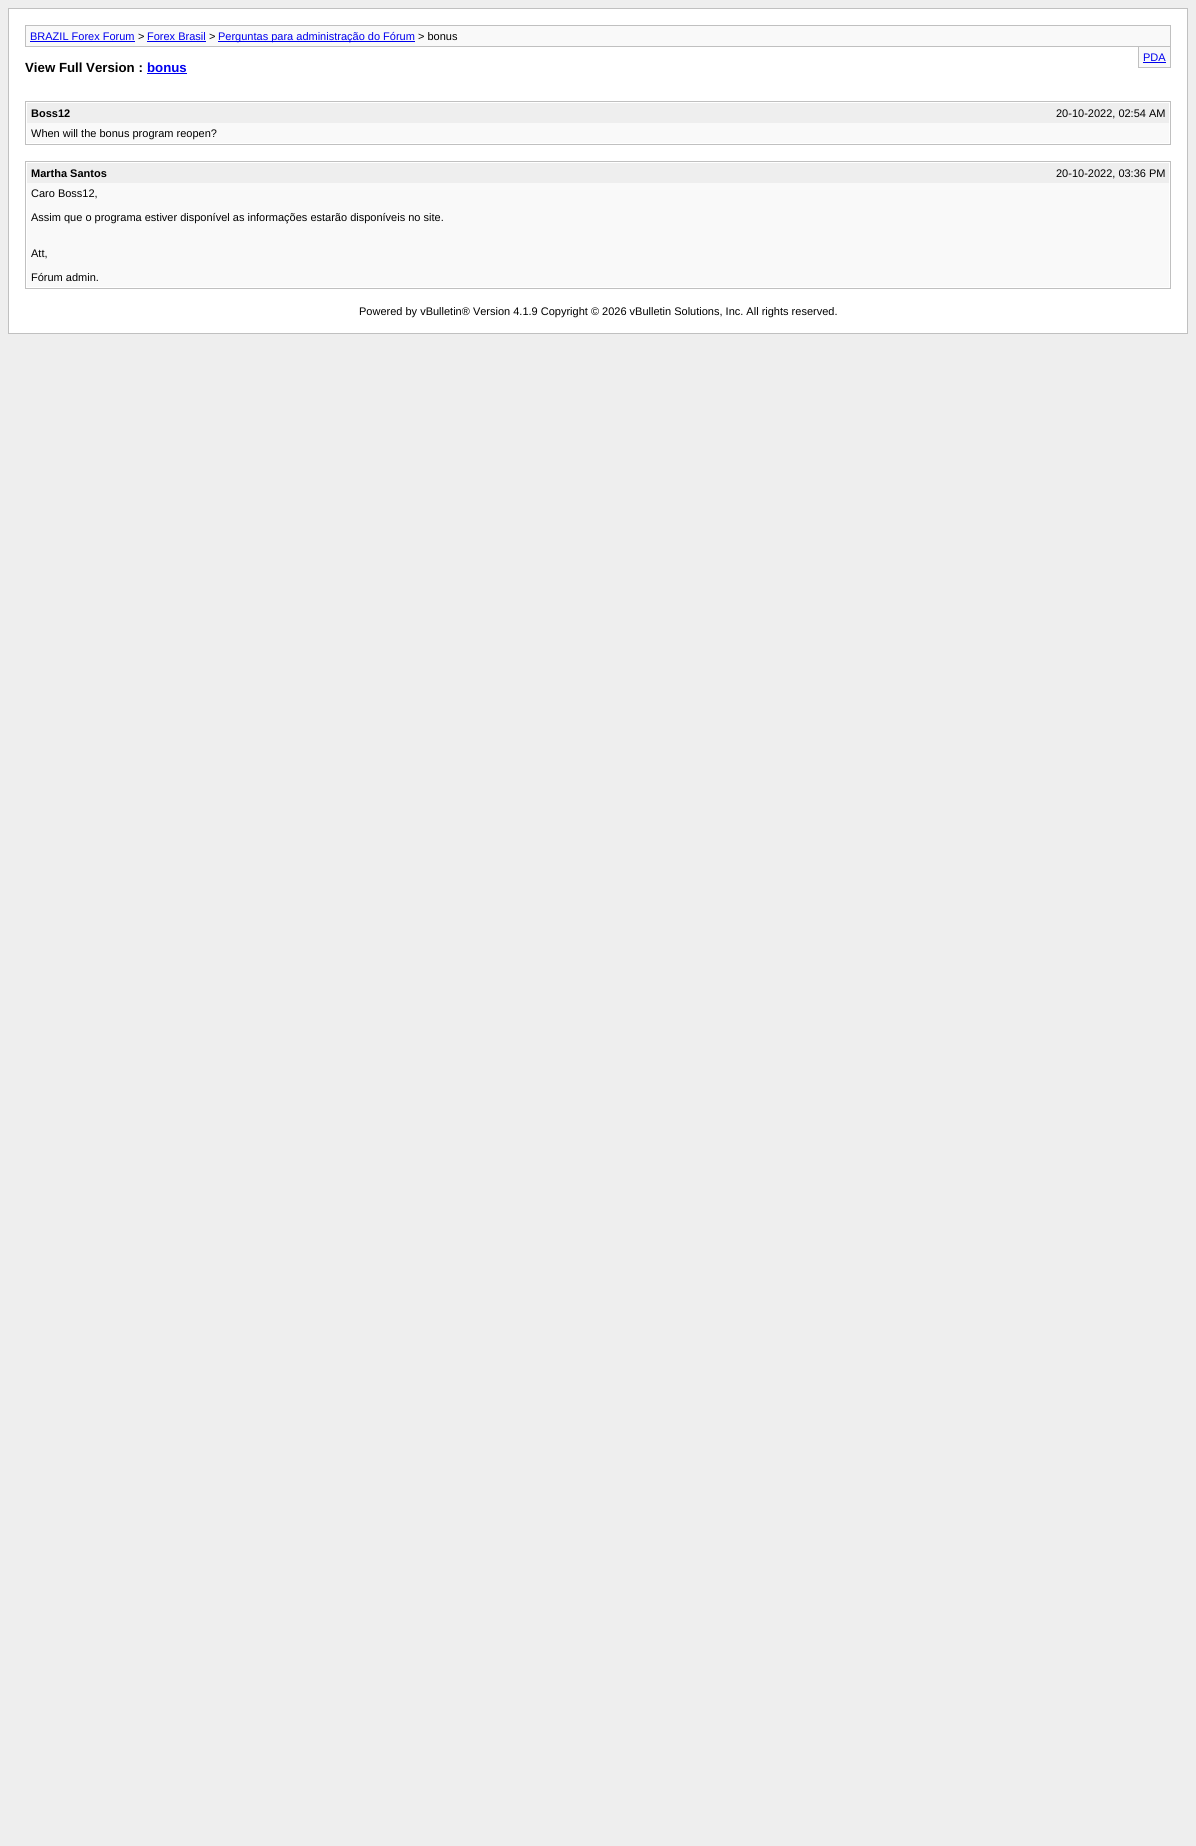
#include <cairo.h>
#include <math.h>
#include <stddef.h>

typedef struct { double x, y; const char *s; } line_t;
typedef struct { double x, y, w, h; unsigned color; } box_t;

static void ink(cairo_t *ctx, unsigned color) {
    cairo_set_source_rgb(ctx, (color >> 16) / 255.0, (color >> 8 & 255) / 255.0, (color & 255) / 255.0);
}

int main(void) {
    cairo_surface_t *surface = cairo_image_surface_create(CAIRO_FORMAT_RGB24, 1196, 1846);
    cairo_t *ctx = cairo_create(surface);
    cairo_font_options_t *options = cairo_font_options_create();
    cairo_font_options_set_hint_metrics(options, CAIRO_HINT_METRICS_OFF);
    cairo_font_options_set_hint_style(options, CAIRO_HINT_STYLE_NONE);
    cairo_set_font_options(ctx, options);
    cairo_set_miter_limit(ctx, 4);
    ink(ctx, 0xEEEEEE);
    cairo_paint(ctx);
    ink(ctx, 0xFFFFFF);
    cairo_rectangle(ctx, 8.5, 8.5, 1179, 325);
    cairo_fill_preserve(ctx);
    ink(ctx, 0xC0C0C0);
    cairo_set_line_width(ctx, 1);
    cairo_stroke(ctx);
    ink(ctx, 0xF9F9F9);
    cairo_rectangle(ctx, 25.5, 25.5, 1145, 21);
    cairo_fill_preserve(ctx);
    ink(ctx, 0xC0C0C0);
    cairo_stroke(ctx);
    cairo_select_font_face(ctx, "Liberation Sans", CAIRO_FONT_SLANT_NORMAL, CAIRO_FONT_WEIGHT_NORMAL);
    cairo_set_font_size(ctx, 11);
    ink(ctx, 0x0000EE);
    cairo_move_to(ctx, 30, 40);
    cairo_show_text(ctx, "BRAZIL Forex Forum");
    cairo_rectangle(ctx, 30, 41, 105, 1);
    cairo_fill(ctx);
    ink(ctx, 0x000000);
    cairo_move_to(ctx, 138, 40);
    cairo_show_text(ctx, ">");
    ink(ctx, 0x0000EE);
    cairo_move_to(ctx, 147, 40);
    cairo_show_text(ctx, "Forex Brasil");
    cairo_rectangle(ctx, 147, 41, 59, 1);
    cairo_fill(ctx);
    ink(ctx, 0x000000);
    cairo_move_to(ctx, 209, 40);
    cairo_show_text(ctx, ">");
    ink(ctx, 0x0000EE);
    cairo_rectangle(ctx, 218, 41, 197, 1);
    cairo_fill(ctx);
    cairo_move_to(ctx, 218, 40);
    cairo_show_text(ctx, "Perguntas para administração do Fórum");
    ink(ctx, 0x000000);
    cairo_move_to(ctx, 418, 40);
    cairo_show_text(ctx, "> bonus");
    {
        static const box_t items[] = {
            {1139, 47, 31, 20, 0xF9F9F9},
            {1170, 47, 1, 21, 0xC0C0C0},
            {1138, 67, 33, 1, 0xC0C0C0},
            {1138, 47, 1, 21, 0xC0C0C0},
        };
        for (size_t i = 0; i < sizeof items / sizeof *items; i++) {
            ink(ctx, items[i].color);
            cairo_rectangle(ctx, items[i].x, items[i].y, items[i].w, items[i].h);
            cairo_fill(ctx);
        }
    }
    ink(ctx, 0x0000EE);
    cairo_move_to(ctx, 1143, 61);
    cairo_show_text(ctx, "PDA");
    cairo_rectangle(ctx, 1143, 62, 23, 1);
    cairo_fill(ctx);
    cairo_select_font_face(ctx, "Liberation Sans", CAIRO_FONT_SLANT_NORMAL, CAIRO_FONT_WEIGHT_BOLD);
    cairo_set_font_size(ctx, 13.25);
    ink(ctx, 0x000000);
    cairo_move_to(ctx, 25, 72);
    cairo_show_text(ctx, "View Full Version :");
    ink(ctx, 0x0000EE);
    cairo_move_to(ctx, 147, 72);
    cairo_show_text(ctx, "bonus");
    cairo_rectangle(ctx, 147, 73, 40, 1);
    cairo_fill(ctx);
    cairo_rectangle(ctx, 25.5, 101.5, 1145, 43);
    ink(ctx, 0xC0C0C0);
    cairo_stroke(ctx);
    ink(ctx, 0xEEEEEE);
    cairo_rectangle(ctx, 27, 103, 1142, 20);
    cairo_fill(ctx);
    cairo_set_font_size(ctx, 11);
    ink(ctx, 0x000000);
    cairo_move_to(ctx, 31, 117);
    cairo_show_text(ctx, "Boss12");
    cairo_select_font_face(ctx, "Liberation Sans", CAIRO_FONT_SLANT_NORMAL, CAIRO_FONT_WEIGHT_NORMAL);
    cairo_move_to(ctx, 1056, 117);
    cairo_show_text(ctx, "20-10-2022, 02:54 AM");
    ink(ctx, 0xF9F9F9);
    cairo_rectangle(ctx, 27, 123, 1142, 20);
    cairo_fill(ctx);
    ink(ctx, 0x000000);
    cairo_move_to(ctx, 31, 137);
    cairo_show_text(ctx, "When will the bonus program reopen?");
    cairo_rectangle(ctx, 25.5, 161.5, 1145, 127);
    ink(ctx, 0xC0C0C0);
    cairo_stroke(ctx);
    ink(ctx, 0xEEEEEE);
    cairo_rectangle(ctx, 27, 163, 1142, 20);
    cairo_fill(ctx);
    cairo_select_font_face(ctx, "Liberation Sans", CAIRO_FONT_SLANT_NORMAL, CAIRO_FONT_WEIGHT_BOLD);
    ink(ctx, 0x000000);
    cairo_move_to(ctx, 31, 177);
    cairo_show_text(ctx, "Martha Santos");
    cairo_select_font_face(ctx, "Liberation Sans", CAIRO_FONT_SLANT_NORMAL, CAIRO_FONT_WEIGHT_NORMAL);
    cairo_move_to(ctx, 1056, 177);
    cairo_show_text(ctx, "20-10-2022, 03:36 PM");
    ink(ctx, 0xF9F9F9);
    cairo_rectangle(ctx, 27, 183, 1142, 104);
    cairo_fill(ctx);
    ink(ctx, 0x000000);
    {
        static const line_t items[] = {
            {31, 197, "Caro Boss12,"},
            {31, 221, "Assim que o programa estiver disponível as informações estarão disponíveis no site."},
            {31, 257, "Att,"},
            {31, 281, "Fórum admin."},
            {359, 315, "Powered by vBulletin® Version 4.1.9 Copyright © 2026 vBulletin Solutions, Inc. All rights reserved."},
        };
        for (size_t i = 0; i < sizeof items / sizeof *items; i++) {
            cairo_move_to(ctx, items[i].x, items[i].y);
            cairo_show_text(ctx, items[i].s);
        }
    }
    cairo_surface_write_to_png(surface, "image.png");
    cairo_font_options_destroy(options);
    cairo_destroy(ctx);
    cairo_surface_destroy(surface);
    return 0;
}
